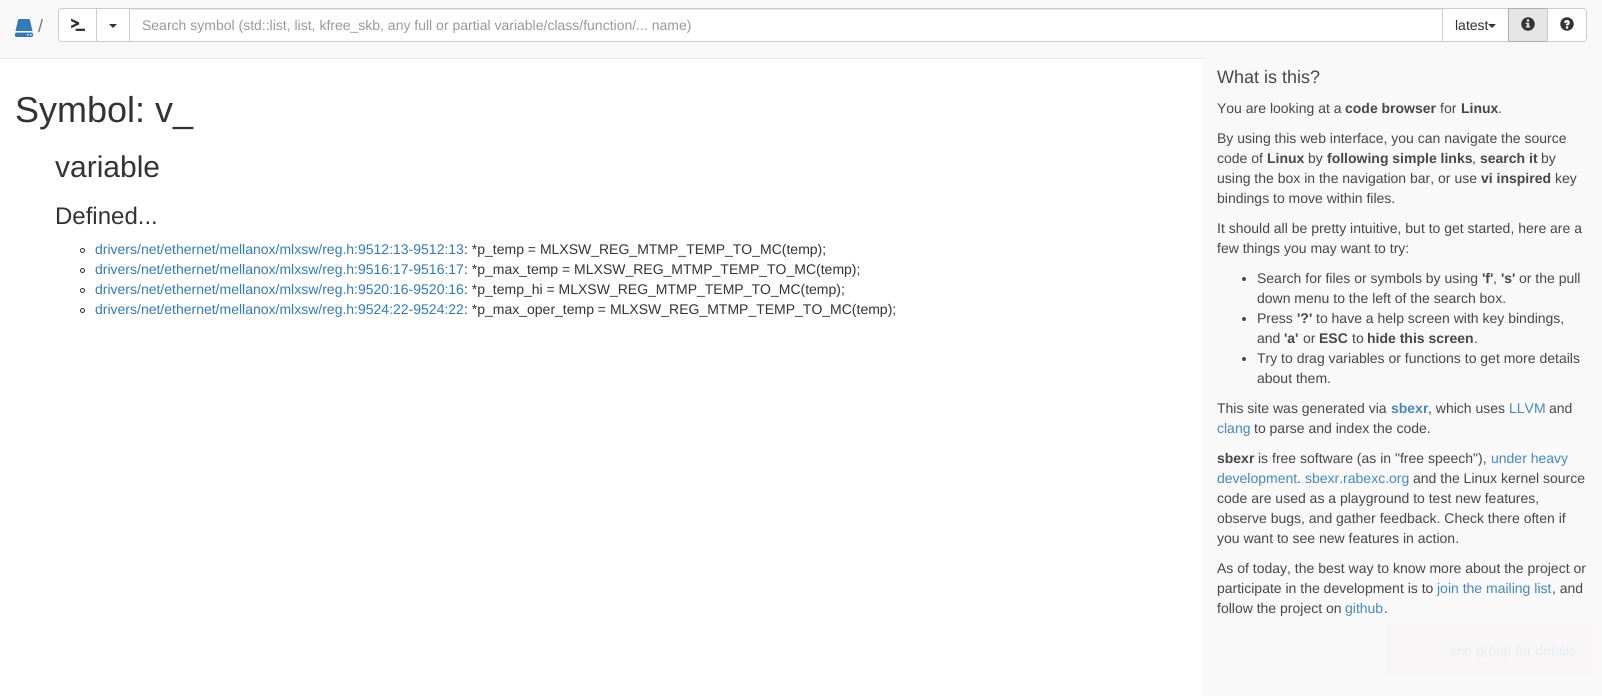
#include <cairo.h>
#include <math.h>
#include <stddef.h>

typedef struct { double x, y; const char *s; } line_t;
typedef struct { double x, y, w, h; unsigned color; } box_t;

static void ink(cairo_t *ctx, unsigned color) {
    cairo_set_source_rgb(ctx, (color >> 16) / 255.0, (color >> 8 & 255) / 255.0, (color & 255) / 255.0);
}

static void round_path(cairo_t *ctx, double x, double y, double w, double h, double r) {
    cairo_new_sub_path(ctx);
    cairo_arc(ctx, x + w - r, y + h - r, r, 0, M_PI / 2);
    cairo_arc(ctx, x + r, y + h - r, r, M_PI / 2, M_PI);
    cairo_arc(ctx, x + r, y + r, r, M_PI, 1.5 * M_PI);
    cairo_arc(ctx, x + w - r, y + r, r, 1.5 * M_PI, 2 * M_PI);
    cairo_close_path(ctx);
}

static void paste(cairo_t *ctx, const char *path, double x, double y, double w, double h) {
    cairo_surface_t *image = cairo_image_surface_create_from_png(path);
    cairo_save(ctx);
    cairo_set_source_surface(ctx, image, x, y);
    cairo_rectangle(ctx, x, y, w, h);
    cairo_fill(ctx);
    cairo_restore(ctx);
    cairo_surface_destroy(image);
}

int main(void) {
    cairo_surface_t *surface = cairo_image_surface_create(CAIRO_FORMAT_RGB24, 1602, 696);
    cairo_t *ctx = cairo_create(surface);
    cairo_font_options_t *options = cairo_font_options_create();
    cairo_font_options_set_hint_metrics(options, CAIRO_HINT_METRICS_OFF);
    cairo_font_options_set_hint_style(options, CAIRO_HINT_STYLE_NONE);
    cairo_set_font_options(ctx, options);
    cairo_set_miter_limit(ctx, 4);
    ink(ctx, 0xFFFFFF);
    cairo_paint(ctx);
    {
        static const box_t items[] = {
            {1202, 59, 400, 637, 0xF9F9F9},
            {0, 0, 1602, 58, 0xF8F8F8},
            {0, 58, 1202, 1, 0xE7E7E7},
            {1202, 58, 400, 1, 0xF6F6F6},
        };
        for (size_t i = 0; i < sizeof items / sizeof *items; i++) {
            ink(ctx, items[i].color);
            cairo_rectangle(ctx, items[i].x, items[i].y, items[i].w, items[i].h);
            cairo_fill(ctx);
        }
    }
    paste(ctx, "media/1.png", 15, 19, 18, 18);
    cairo_select_font_face(ctx, "Liberation Sans", CAIRO_FONT_SLANT_NORMAL, CAIRO_FONT_WEIGHT_NORMAL);
    cairo_set_font_size(ctx, 18);
    ink(ctx, 0x777777);
    cairo_move_to(ctx, 38, 32);
    cairo_show_text(ctx, "/");
    ink(ctx, 0xFFFFFF);
    cairo_new_path(ctx);
    cairo_move_to(ctx, 62, 8.5);
    cairo_line_to(ctx, 97.5, 8.5);
    cairo_line_to(ctx, 97.5, 41.5);
    cairo_line_to(ctx, 62, 41.5);
    cairo_curve_to(ctx, 60, 41.5, 58.5, 40, 58.5, 38);
    cairo_line_to(ctx, 58.5, 12);
    cairo_curve_to(ctx, 58.5, 10, 60, 8.5, 62, 8.5);
    cairo_close_path(ctx);
    cairo_fill_preserve(ctx);
    ink(ctx, 0xCCCCCC);
    cairo_set_line_width(ctx, 1);
    cairo_stroke(ctx);
    paste(ctx, "media/2.png", 71, 18, 14, 13);
    ink(ctx, 0xFFFFFF);
    cairo_rectangle(ctx, 96.5, 8.5, 33, 33);
    cairo_fill_preserve(ctx);
    ink(ctx, 0xCCCCCC);
    cairo_stroke(ctx);
    ink(ctx, 0x333333);
    cairo_new_path(ctx);
    cairo_move_to(ctx, 109, 24);
    cairo_line_to(ctx, 117, 24);
    cairo_line_to(ctx, 113, 28);
    cairo_close_path(ctx);
    cairo_fill(ctx);
    ink(ctx, 0xFFFFFF);
    cairo_rectangle(ctx, 130, 10, 1312, 31);
    cairo_fill(ctx);
    ink(ctx, 0xECECEC);
    cairo_rectangle(ctx, 130, 9, 1312, 1);
    cairo_fill(ctx);
    cairo_rectangle(ctx, 129.5, 8.5, 1313, 33);
    ink(ctx, 0xCCCCCC);
    cairo_stroke(ctx);
    cairo_set_font_size(ctx, 14);
    ink(ctx, 0x999999);
    cairo_move_to(ctx, 142, 30);
    cairo_show_text(ctx, "Search symbol (std::list, list, kfree_skb, any full or partial variable/class/function/... name)");
    ink(ctx, 0xFFFFFF);
    cairo_rectangle(ctx, 1442.5, 8.5, 66, 33);
    cairo_fill_preserve(ctx);
    ink(ctx, 0xCCCCCC);
    cairo_stroke(ctx);
    ink(ctx, 0x333333);
    cairo_move_to(ctx, 1455, 30);
    cairo_show_text(ctx, "latest");
    cairo_new_path(ctx);
    cairo_move_to(ctx, 1488, 24);
    cairo_line_to(ctx, 1496, 24);
    cairo_line_to(ctx, 1492, 28);
    cairo_close_path(ctx);
    cairo_fill(ctx);
    ink(ctx, 0xE6E6E6);
    cairo_rectangle(ctx, 1508.5, 8.5, 39, 33);
    cairo_fill_preserve(ctx);
    ink(ctx, 0xADADAD);
    cairo_stroke(ctx);
    paste(ctx, "media/3.png", 1521, 17, 14, 14);
    ink(ctx, 0xFFFFFF);
    cairo_new_path(ctx);
    cairo_move_to(ctx, 1547.5, 8.5);
    cairo_line_to(ctx, 1583, 8.5);
    cairo_curve_to(ctx, 1585, 8.5, 1586.5, 10, 1586.5, 12);
    cairo_line_to(ctx, 1586.5, 38);
    cairo_curve_to(ctx, 1586.5, 40, 1585, 41.5, 1583, 41.5);
    cairo_line_to(ctx, 1547.5, 41.5);
    cairo_close_path(ctx);
    cairo_fill_preserve(ctx);
    ink(ctx, 0xCCCCCC);
    cairo_stroke(ctx);
    paste(ctx, "media/4.png", 1560, 17, 14, 14);
    cairo_set_font_size(ctx, 36);
    ink(ctx, 0x333333);
    cairo_move_to(ctx, 15, 122);
    cairo_show_text(ctx, "Symbol: v_");
    cairo_set_font_size(ctx, 30);
    cairo_move_to(ctx, 55, 177);
    cairo_show_text(ctx, "variable");
    cairo_set_font_size(ctx, 24);
    cairo_move_to(ctx, 55, 224);
    cairo_show_text(ctx, "Defined...");
    cairo_new_path(ctx);
    cairo_arc(ctx, 82.5, 250.5, 2, 0, 2 * M_PI);
    cairo_stroke(ctx);
    cairo_set_font_size(ctx, 14);
    ink(ctx, 0x337AB7);
    cairo_move_to(ctx, 95, 254);
    cairo_show_text(ctx, "drivers/net/ethernet/mellanox/mlxsw/reg.h:9512:13-9512:13");
    ink(ctx, 0x333333);
    cairo_move_to(ctx, 464, 254);
    cairo_show_text(ctx, ": *p_temp = MLXSW_REG_MTMP_TEMP_TO_MC(temp);");
    cairo_new_path(ctx);
    cairo_arc(ctx, 82.5, 270.5, 2, 0, 2 * M_PI);
    cairo_stroke(ctx);
    ink(ctx, 0x337AB7);
    cairo_move_to(ctx, 95, 274);
    cairo_show_text(ctx, "drivers/net/ethernet/mellanox/mlxsw/reg.h:9516:17-9516:17");
    ink(ctx, 0x333333);
    cairo_move_to(ctx, 464, 274);
    cairo_show_text(ctx, ": *p_max_temp = MLXSW_REG_MTMP_TEMP_TO_MC(temp);");
    cairo_new_path(ctx);
    cairo_arc(ctx, 82.5, 290.5, 2, 0, 2 * M_PI);
    cairo_stroke(ctx);
    ink(ctx, 0x337AB7);
    cairo_move_to(ctx, 95, 294);
    cairo_show_text(ctx, "drivers/net/ethernet/mellanox/mlxsw/reg.h:9520:16-9520:16");
    ink(ctx, 0x333333);
    cairo_move_to(ctx, 464, 294);
    cairo_show_text(ctx, ": *p_temp_hi = MLXSW_REG_MTMP_TEMP_TO_MC(temp);");
    cairo_new_path(ctx);
    cairo_arc(ctx, 82.5, 310.5, 2, 0, 2 * M_PI);
    cairo_stroke(ctx);
    ink(ctx, 0x337AB7);
    cairo_move_to(ctx, 95, 314);
    cairo_show_text(ctx, "drivers/net/ethernet/mellanox/mlxsw/reg.h:9524:22-9524:22");
    ink(ctx, 0x333333);
    cairo_move_to(ctx, 464, 314);
    cairo_show_text(ctx, ": *p_max_oper_temp = MLXSW_REG_MTMP_TEMP_TO_MC(temp);");
    cairo_set_font_size(ctx, 18);
    ink(ctx, 0x474747);
    cairo_move_to(ctx, 1217, 83);
    cairo_show_text(ctx, "What is this?");
    cairo_set_font_size(ctx, 14);
    cairo_move_to(ctx, 1217, 113);
    cairo_show_text(ctx, "You are looking at a");
    cairo_select_font_face(ctx, "Liberation Sans", CAIRO_FONT_SLANT_NORMAL, CAIRO_FONT_WEIGHT_BOLD);
    cairo_move_to(ctx, 1345, 113);
    cairo_show_text(ctx, "code browser");
    cairo_select_font_face(ctx, "Liberation Sans", CAIRO_FONT_SLANT_NORMAL, CAIRO_FONT_WEIGHT_NORMAL);
    cairo_move_to(ctx, 1440, 113);
    cairo_show_text(ctx, "for");
    cairo_select_font_face(ctx, "Liberation Sans", CAIRO_FONT_SLANT_NORMAL, CAIRO_FONT_WEIGHT_BOLD);
    cairo_move_to(ctx, 1461, 113);
    cairo_show_text(ctx, "Linux");
    cairo_select_font_face(ctx, "Liberation Sans", CAIRO_FONT_SLANT_NORMAL, CAIRO_FONT_WEIGHT_NORMAL);
    {
        static const line_t items[] = {
            {1498, 113, "."},
            {1217, 143, "By using this web interface, you can navigate the source"},
            {1217, 163, "code of"},
        };
        for (size_t i = 0; i < sizeof items / sizeof *items; i++) {
            cairo_move_to(ctx, items[i].x, items[i].y);
            cairo_show_text(ctx, items[i].s);
        }
    }
    cairo_select_font_face(ctx, "Liberation Sans", CAIRO_FONT_SLANT_NORMAL, CAIRO_FONT_WEIGHT_BOLD);
    cairo_move_to(ctx, 1267, 163);
    cairo_show_text(ctx, "Linux");
    cairo_select_font_face(ctx, "Liberation Sans", CAIRO_FONT_SLANT_NORMAL, CAIRO_FONT_WEIGHT_NORMAL);
    cairo_move_to(ctx, 1308, 163);
    cairo_show_text(ctx, "by");
    cairo_select_font_face(ctx, "Liberation Sans", CAIRO_FONT_SLANT_NORMAL, CAIRO_FONT_WEIGHT_BOLD);
    cairo_move_to(ctx, 1327, 163);
    cairo_show_text(ctx, "following simple links");
    cairo_select_font_face(ctx, "Liberation Sans", CAIRO_FONT_SLANT_NORMAL, CAIRO_FONT_WEIGHT_NORMAL);
    cairo_move_to(ctx, 1472, 163);
    cairo_show_text(ctx, ",");
    cairo_select_font_face(ctx, "Liberation Sans", CAIRO_FONT_SLANT_NORMAL, CAIRO_FONT_WEIGHT_BOLD);
    cairo_move_to(ctx, 1480, 163);
    cairo_show_text(ctx, "search it");
    cairo_select_font_face(ctx, "Liberation Sans", CAIRO_FONT_SLANT_NORMAL, CAIRO_FONT_WEIGHT_NORMAL);
    cairo_move_to(ctx, 1541, 163);
    cairo_show_text(ctx, "by");
    cairo_move_to(ctx, 1217, 183);
    cairo_show_text(ctx, "using the box in the navigation bar, or use");
    cairo_select_font_face(ctx, "Liberation Sans", CAIRO_FONT_SLANT_NORMAL, CAIRO_FONT_WEIGHT_BOLD);
    cairo_move_to(ctx, 1481, 183);
    cairo_show_text(ctx, "vi inspired");
    cairo_select_font_face(ctx, "Liberation Sans", CAIRO_FONT_SLANT_NORMAL, CAIRO_FONT_WEIGHT_NORMAL);
    {
        static const line_t items[] = {
            {1555, 183, "key"},
            {1217, 203, "bindings to move within files."},
            {1217, 233, "It should all be pretty intuitive, but to get started, here are a"},
            {1217, 253, "few things you may want to try:"},
        };
        for (size_t i = 0; i < sizeof items / sizeof *items; i++) {
            cairo_move_to(ctx, items[i].x, items[i].y);
            cairo_show_text(ctx, items[i].s);
        }
    }
    cairo_new_path(ctx);
    cairo_arc(ctx, 1244, 279, 2, 0, 2 * M_PI);
    cairo_fill(ctx);
    cairo_move_to(ctx, 1257, 283);
    cairo_show_text(ctx, "Search for files or symbols by using");
    cairo_select_font_face(ctx, "Liberation Sans", CAIRO_FONT_SLANT_NORMAL, CAIRO_FONT_WEIGHT_BOLD);
    cairo_move_to(ctx, 1482, 283);
    cairo_show_text(ctx, "'f'");
    cairo_move_to(ctx, 1501, 283);
    cairo_show_text(ctx, "'s'");
    cairo_select_font_face(ctx, "Liberation Sans", CAIRO_FONT_SLANT_NORMAL, CAIRO_FONT_WEIGHT_NORMAL);
    {
        static const line_t items[] = {
            {1519, 283, "or the pull"},
            {1493, 283, ","},
            {1257, 303, "down menu to the left of the search box."},
        };
        for (size_t i = 0; i < sizeof items / sizeof *items; i++) {
            cairo_move_to(ctx, items[i].x, items[i].y);
            cairo_show_text(ctx, items[i].s);
        }
    }
    cairo_new_path(ctx);
    cairo_arc(ctx, 1244, 319, 2, 0, 2 * M_PI);
    cairo_fill(ctx);
    cairo_move_to(ctx, 1257, 323);
    cairo_show_text(ctx, "Press");
    cairo_select_font_face(ctx, "Liberation Sans", CAIRO_FONT_SLANT_NORMAL, CAIRO_FONT_WEIGHT_BOLD);
    cairo_move_to(ctx, 1297, 323);
    cairo_show_text(ctx, "'?'");
    cairo_select_font_face(ctx, "Liberation Sans", CAIRO_FONT_SLANT_NORMAL, CAIRO_FONT_WEIGHT_NORMAL);
    cairo_move_to(ctx, 1316, 323);
    cairo_show_text(ctx, "to have a help screen with key bindings,");
    cairo_move_to(ctx, 1257, 343);
    cairo_show_text(ctx, "and");
    cairo_select_font_face(ctx, "Liberation Sans", CAIRO_FONT_SLANT_NORMAL, CAIRO_FONT_WEIGHT_BOLD);
    cairo_move_to(ctx, 1284, 343);
    cairo_show_text(ctx, "'a'");
    cairo_select_font_face(ctx, "Liberation Sans", CAIRO_FONT_SLANT_NORMAL, CAIRO_FONT_WEIGHT_NORMAL);
    cairo_move_to(ctx, 1303, 343);
    cairo_show_text(ctx, "or");
    cairo_select_font_face(ctx, "Liberation Sans", CAIRO_FONT_SLANT_NORMAL, CAIRO_FONT_WEIGHT_BOLD);
    cairo_move_to(ctx, 1319, 343);
    cairo_show_text(ctx, "ESC");
    cairo_select_font_face(ctx, "Liberation Sans", CAIRO_FONT_SLANT_NORMAL, CAIRO_FONT_WEIGHT_NORMAL);
    cairo_move_to(ctx, 1352, 343);
    cairo_show_text(ctx, "to");
    cairo_select_font_face(ctx, "Liberation Sans", CAIRO_FONT_SLANT_NORMAL, CAIRO_FONT_WEIGHT_BOLD);
    cairo_move_to(ctx, 1367, 343);
    cairo_show_text(ctx, "hide this screen");
    cairo_select_font_face(ctx, "Liberation Sans", CAIRO_FONT_SLANT_NORMAL, CAIRO_FONT_WEIGHT_NORMAL);
    cairo_move_to(ctx, 1474, 343);
    cairo_show_text(ctx, ".");
    cairo_new_path(ctx);
    cairo_arc(ctx, 1244, 359, 2, 0, 2 * M_PI);
    cairo_fill(ctx);
    {
        static const line_t items[] = {
            {1257, 363, "Try to drag variables or functions to get more details"},
            {1257, 383, "about them."},
            {1217, 413, "This site was generated via"},
        };
        for (size_t i = 0; i < sizeof items / sizeof *items; i++) {
            cairo_move_to(ctx, items[i].x, items[i].y);
            cairo_show_text(ctx, items[i].s);
        }
    }
    cairo_select_font_face(ctx, "Liberation Sans", CAIRO_FONT_SLANT_NORMAL, CAIRO_FONT_WEIGHT_BOLD);
    ink(ctx, 0x4787BE);
    cairo_move_to(ctx, 1391, 413);
    cairo_show_text(ctx, "sbexr");
    cairo_select_font_face(ctx, "Liberation Sans", CAIRO_FONT_SLANT_NORMAL, CAIRO_FONT_WEIGHT_NORMAL);
    ink(ctx, 0x474747);
    cairo_move_to(ctx, 1428, 413);
    cairo_show_text(ctx, ", which uses");
    ink(ctx, 0x4787BE);
    cairo_move_to(ctx, 1509, 413);
    cairo_show_text(ctx, "LLVM");
    ink(ctx, 0x474747);
    cairo_move_to(ctx, 1549, 413);
    cairo_show_text(ctx, "and");
    ink(ctx, 0x4787BE);
    cairo_move_to(ctx, 1217, 433);
    cairo_show_text(ctx, "clang");
    ink(ctx, 0x474747);
    cairo_move_to(ctx, 1254, 433);
    cairo_show_text(ctx, "to parse and index the code.");
    cairo_select_font_face(ctx, "Liberation Sans", CAIRO_FONT_SLANT_NORMAL, CAIRO_FONT_WEIGHT_BOLD);
    cairo_move_to(ctx, 1217, 463);
    cairo_show_text(ctx, "sbexr");
    cairo_select_font_face(ctx, "Liberation Sans", CAIRO_FONT_SLANT_NORMAL, CAIRO_FONT_WEIGHT_NORMAL);
    cairo_move_to(ctx, 1258, 463);
    cairo_show_text(ctx, "is free software (as in \"free speech\"),");
    ink(ctx, 0x4787BE);
    cairo_move_to(ctx, 1491, 463);
    cairo_show_text(ctx, "under heavy");
    cairo_move_to(ctx, 1217, 483);
    cairo_show_text(ctx, "development");
    ink(ctx, 0x474747);
    cairo_move_to(ctx, 1297, 483);
    cairo_show_text(ctx, ".");
    ink(ctx, 0x4787BE);
    cairo_move_to(ctx, 1305, 483);
    cairo_show_text(ctx, "sbexr.rabexc.org");
    ink(ctx, 0x474747);
    {
        static const line_t items[] = {
            {1413, 483, "and the Linux kernel source"},
            {1217, 503, "code are used as a playground to test new features,"},
            {1217, 523, "observe bugs, and gather feedback. Check there often if"},
            {1217, 543, "you want to see new features in action."},
            {1217, 573, "As of today, the best way to know more about the project or"},
            {1217, 593, "participate in the development is to"},
        };
        for (size_t i = 0; i < sizeof items / sizeof *items; i++) {
            cairo_move_to(ctx, items[i].x, items[i].y);
            cairo_show_text(ctx, items[i].s);
        }
    }
    ink(ctx, 0x4787BE);
    cairo_move_to(ctx, 1437, 593);
    cairo_show_text(ctx, "join the mailing list");
    ink(ctx, 0x474747);
    cairo_move_to(ctx, 1552, 593);
    cairo_show_text(ctx, ", and");
    cairo_move_to(ctx, 1217, 613);
    cairo_show_text(ctx, "follow the project on");
    ink(ctx, 0x4787BE);
    cairo_move_to(ctx, 1345, 613);
    cairo_show_text(ctx, "github");
    ink(ctx, 0x474747);
    cairo_move_to(ctx, 1384, 613);
    cairo_show_text(ctx, ".");
    ink(ctx, 0xF8F6F6);
    round_path(ctx, 1385, 624, 207, 52, 4);
    cairo_fill(ctx);
    ink(ctx, 0xE6EDF2);
    cairo_move_to(ctx, 1450, 655);
    cairo_show_text(ctx, "join group for details");
    cairo_surface_write_to_png(surface, "image.png");
    cairo_font_options_destroy(options);
    cairo_destroy(ctx);
    cairo_surface_destroy(surface);
    return 0;
}
